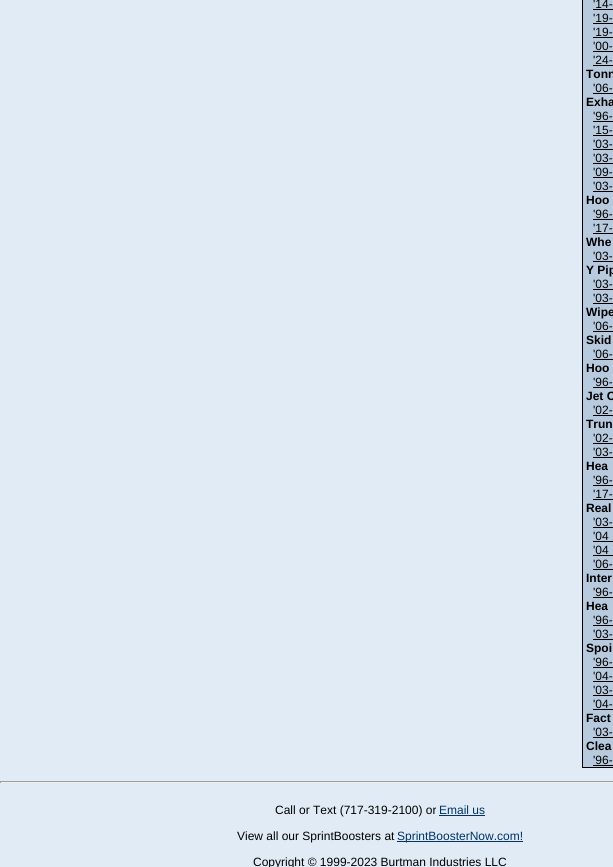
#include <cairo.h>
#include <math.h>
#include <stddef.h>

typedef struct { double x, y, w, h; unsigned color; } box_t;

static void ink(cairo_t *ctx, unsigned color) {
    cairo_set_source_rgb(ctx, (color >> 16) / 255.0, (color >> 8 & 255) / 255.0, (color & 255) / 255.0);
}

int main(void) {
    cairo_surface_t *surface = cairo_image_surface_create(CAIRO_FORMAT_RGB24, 613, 867);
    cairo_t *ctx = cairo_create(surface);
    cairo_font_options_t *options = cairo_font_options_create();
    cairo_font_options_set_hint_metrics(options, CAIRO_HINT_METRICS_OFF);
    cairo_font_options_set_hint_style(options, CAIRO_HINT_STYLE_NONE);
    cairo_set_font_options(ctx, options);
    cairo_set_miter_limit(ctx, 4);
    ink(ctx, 0xE1EBF5);
    cairo_paint(ctx);
    ink(ctx, 0x000000);
    cairo_rectangle(ctx, 582, 0, 1, 768);
    cairo_fill(ctx);
    ink(ctx, 0xB8CADE);
    cairo_rectangle(ctx, 583, 0, 30, 767);
    cairo_fill(ctx);
    cairo_select_font_face(ctx, "Liberation Sans", CAIRO_FONT_SLANT_NORMAL, CAIRO_FONT_WEIGHT_NORMAL);
    cairo_set_font_size(ctx, 12);
    ink(ctx, 0x000000);
    cairo_move_to(ctx, 593, 8);
    cairo_show_text(ctx, "'14-");
    cairo_rectangle(ctx, 593, 9, 20, 1);
    cairo_fill(ctx);
    cairo_move_to(ctx, 593, 22);
    cairo_show_text(ctx, "'19-");
    cairo_rectangle(ctx, 593, 23, 20, 1);
    cairo_fill(ctx);
    cairo_move_to(ctx, 593, 36);
    cairo_show_text(ctx, "'19-");
    cairo_rectangle(ctx, 593, 37, 20, 1);
    cairo_fill(ctx);
    cairo_move_to(ctx, 593, 50);
    cairo_show_text(ctx, "'00-");
    cairo_rectangle(ctx, 593, 51, 20, 1);
    cairo_fill(ctx);
    cairo_move_to(ctx, 593, 64);
    cairo_show_text(ctx, "'24-");
    cairo_rectangle(ctx, 593, 65, 20, 1);
    cairo_fill(ctx);
    cairo_select_font_face(ctx, "Liberation Sans", CAIRO_FONT_SLANT_NORMAL, CAIRO_FONT_WEIGHT_BOLD);
    cairo_move_to(ctx, 586, 78);
    cairo_show_text(ctx, "Tonn");
    cairo_select_font_face(ctx, "Liberation Sans", CAIRO_FONT_SLANT_NORMAL, CAIRO_FONT_WEIGHT_NORMAL);
    cairo_move_to(ctx, 593, 92);
    cairo_show_text(ctx, "'06-");
    cairo_rectangle(ctx, 593, 93, 20, 1);
    cairo_fill(ctx);
    cairo_select_font_face(ctx, "Liberation Sans", CAIRO_FONT_SLANT_NORMAL, CAIRO_FONT_WEIGHT_BOLD);
    cairo_move_to(ctx, 586, 106);
    cairo_show_text(ctx, "Exha");
    cairo_select_font_face(ctx, "Liberation Sans", CAIRO_FONT_SLANT_NORMAL, CAIRO_FONT_WEIGHT_NORMAL);
    cairo_move_to(ctx, 593, 120);
    cairo_show_text(ctx, "'96-");
    cairo_rectangle(ctx, 593, 121, 20, 1);
    cairo_fill(ctx);
    cairo_move_to(ctx, 593, 134);
    cairo_show_text(ctx, "'15-");
    cairo_rectangle(ctx, 593, 135, 20, 1);
    cairo_fill(ctx);
    cairo_move_to(ctx, 593, 148);
    cairo_show_text(ctx, "'03-");
    cairo_rectangle(ctx, 593, 149, 20, 1);
    cairo_fill(ctx);
    cairo_move_to(ctx, 593, 162);
    cairo_show_text(ctx, "'03-");
    cairo_rectangle(ctx, 593, 163, 20, 1);
    cairo_fill(ctx);
    cairo_move_to(ctx, 593, 176);
    cairo_show_text(ctx, "'09-");
    cairo_rectangle(ctx, 593, 177, 20, 1);
    cairo_fill(ctx);
    cairo_move_to(ctx, 593, 190);
    cairo_show_text(ctx, "'03-");
    cairo_rectangle(ctx, 593, 191, 20, 1);
    cairo_fill(ctx);
    cairo_select_font_face(ctx, "Liberation Sans", CAIRO_FONT_SLANT_NORMAL, CAIRO_FONT_WEIGHT_BOLD);
    cairo_move_to(ctx, 586, 204);
    cairo_show_text(ctx, "Hoo");
    cairo_select_font_face(ctx, "Liberation Sans", CAIRO_FONT_SLANT_NORMAL, CAIRO_FONT_WEIGHT_NORMAL);
    cairo_move_to(ctx, 593, 218);
    cairo_show_text(ctx, "'96-");
    cairo_rectangle(ctx, 593, 219, 20, 1);
    cairo_fill(ctx);
    cairo_move_to(ctx, 593, 232);
    cairo_show_text(ctx, "'17-");
    cairo_rectangle(ctx, 593, 233, 20, 1);
    cairo_fill(ctx);
    cairo_select_font_face(ctx, "Liberation Sans", CAIRO_FONT_SLANT_NORMAL, CAIRO_FONT_WEIGHT_BOLD);
    cairo_move_to(ctx, 586, 246);
    cairo_show_text(ctx, "Whe");
    cairo_select_font_face(ctx, "Liberation Sans", CAIRO_FONT_SLANT_NORMAL, CAIRO_FONT_WEIGHT_NORMAL);
    cairo_move_to(ctx, 593, 260);
    cairo_show_text(ctx, "'03-");
    cairo_rectangle(ctx, 593, 261, 20, 1);
    cairo_fill(ctx);
    cairo_select_font_face(ctx, "Liberation Sans", CAIRO_FONT_SLANT_NORMAL, CAIRO_FONT_WEIGHT_BOLD);
    cairo_move_to(ctx, 586, 274);
    cairo_show_text(ctx, "Y Pip");
    cairo_select_font_face(ctx, "Liberation Sans", CAIRO_FONT_SLANT_NORMAL, CAIRO_FONT_WEIGHT_NORMAL);
    cairo_move_to(ctx, 593, 288);
    cairo_show_text(ctx, "'03-");
    cairo_rectangle(ctx, 593, 289, 20, 1);
    cairo_fill(ctx);
    cairo_move_to(ctx, 593, 302);
    cairo_show_text(ctx, "'03-");
    cairo_rectangle(ctx, 593, 303, 20, 1);
    cairo_fill(ctx);
    cairo_select_font_face(ctx, "Liberation Sans", CAIRO_FONT_SLANT_NORMAL, CAIRO_FONT_WEIGHT_BOLD);
    cairo_move_to(ctx, 586, 316);
    cairo_show_text(ctx, "Wipe");
    cairo_select_font_face(ctx, "Liberation Sans", CAIRO_FONT_SLANT_NORMAL, CAIRO_FONT_WEIGHT_NORMAL);
    cairo_move_to(ctx, 593, 330);
    cairo_show_text(ctx, "'06-");
    cairo_rectangle(ctx, 593, 331, 20, 1);
    cairo_fill(ctx);
    cairo_select_font_face(ctx, "Liberation Sans", CAIRO_FONT_SLANT_NORMAL, CAIRO_FONT_WEIGHT_BOLD);
    cairo_move_to(ctx, 586, 344);
    cairo_show_text(ctx, "Skid");
    cairo_select_font_face(ctx, "Liberation Sans", CAIRO_FONT_SLANT_NORMAL, CAIRO_FONT_WEIGHT_NORMAL);
    cairo_move_to(ctx, 593, 358);
    cairo_show_text(ctx, "'06-");
    cairo_rectangle(ctx, 593, 359, 20, 1);
    cairo_fill(ctx);
    cairo_select_font_face(ctx, "Liberation Sans", CAIRO_FONT_SLANT_NORMAL, CAIRO_FONT_WEIGHT_BOLD);
    cairo_move_to(ctx, 586, 372);
    cairo_show_text(ctx, "Hoo");
    cairo_select_font_face(ctx, "Liberation Sans", CAIRO_FONT_SLANT_NORMAL, CAIRO_FONT_WEIGHT_NORMAL);
    cairo_move_to(ctx, 593, 386);
    cairo_show_text(ctx, "'96-");
    cairo_rectangle(ctx, 593, 387, 20, 1);
    cairo_fill(ctx);
    cairo_select_font_face(ctx, "Liberation Sans", CAIRO_FONT_SLANT_NORMAL, CAIRO_FONT_WEIGHT_BOLD);
    cairo_move_to(ctx, 586, 400);
    cairo_show_text(ctx, "Jet C");
    cairo_select_font_face(ctx, "Liberation Sans", CAIRO_FONT_SLANT_NORMAL, CAIRO_FONT_WEIGHT_NORMAL);
    cairo_move_to(ctx, 593, 414);
    cairo_show_text(ctx, "'02-");
    cairo_rectangle(ctx, 593, 415, 20, 1);
    cairo_fill(ctx);
    cairo_select_font_face(ctx, "Liberation Sans", CAIRO_FONT_SLANT_NORMAL, CAIRO_FONT_WEIGHT_BOLD);
    cairo_move_to(ctx, 586, 428);
    cairo_show_text(ctx, "Trun");
    cairo_select_font_face(ctx, "Liberation Sans", CAIRO_FONT_SLANT_NORMAL, CAIRO_FONT_WEIGHT_NORMAL);
    cairo_move_to(ctx, 593, 442);
    cairo_show_text(ctx, "'02-");
    cairo_rectangle(ctx, 593, 443, 20, 1);
    cairo_fill(ctx);
    cairo_move_to(ctx, 593, 456);
    cairo_show_text(ctx, "'03-");
    cairo_rectangle(ctx, 593, 457, 20, 1);
    cairo_fill(ctx);
    cairo_select_font_face(ctx, "Liberation Sans", CAIRO_FONT_SLANT_NORMAL, CAIRO_FONT_WEIGHT_BOLD);
    cairo_move_to(ctx, 586, 470);
    cairo_show_text(ctx, "Hea");
    cairo_select_font_face(ctx, "Liberation Sans", CAIRO_FONT_SLANT_NORMAL, CAIRO_FONT_WEIGHT_NORMAL);
    cairo_move_to(ctx, 593, 484);
    cairo_show_text(ctx, "'96-");
    cairo_rectangle(ctx, 593, 485, 20, 1);
    cairo_fill(ctx);
    cairo_move_to(ctx, 593, 498);
    cairo_show_text(ctx, "'17-");
    cairo_rectangle(ctx, 593, 499, 20, 1);
    cairo_fill(ctx);
    cairo_select_font_face(ctx, "Liberation Sans", CAIRO_FONT_SLANT_NORMAL, CAIRO_FONT_WEIGHT_BOLD);
    cairo_move_to(ctx, 586, 512);
    cairo_show_text(ctx, "Real");
    cairo_select_font_face(ctx, "Liberation Sans", CAIRO_FONT_SLANT_NORMAL, CAIRO_FONT_WEIGHT_NORMAL);
    cairo_move_to(ctx, 593, 526);
    cairo_show_text(ctx, "'03-");
    cairo_rectangle(ctx, 593, 527, 20, 1);
    cairo_fill(ctx);
    cairo_move_to(ctx, 593, 540);
    cairo_show_text(ctx, "'04");
    cairo_rectangle(ctx, 593, 541, 20, 1);
    cairo_fill(ctx);
    cairo_move_to(ctx, 593, 554);
    cairo_show_text(ctx, "'04");
    cairo_rectangle(ctx, 593, 555, 20, 1);
    cairo_fill(ctx);
    cairo_move_to(ctx, 593, 568);
    cairo_show_text(ctx, "'06-");
    cairo_rectangle(ctx, 593, 569, 20, 1);
    cairo_fill(ctx);
    cairo_select_font_face(ctx, "Liberation Sans", CAIRO_FONT_SLANT_NORMAL, CAIRO_FONT_WEIGHT_BOLD);
    cairo_move_to(ctx, 586, 582);
    cairo_show_text(ctx, "Inter");
    cairo_select_font_face(ctx, "Liberation Sans", CAIRO_FONT_SLANT_NORMAL, CAIRO_FONT_WEIGHT_NORMAL);
    cairo_move_to(ctx, 593, 596);
    cairo_show_text(ctx, "'96-");
    cairo_rectangle(ctx, 593, 597, 20, 1);
    cairo_fill(ctx);
    cairo_select_font_face(ctx, "Liberation Sans", CAIRO_FONT_SLANT_NORMAL, CAIRO_FONT_WEIGHT_BOLD);
    cairo_move_to(ctx, 586, 610);
    cairo_show_text(ctx, "Hea");
    cairo_select_font_face(ctx, "Liberation Sans", CAIRO_FONT_SLANT_NORMAL, CAIRO_FONT_WEIGHT_NORMAL);
    cairo_move_to(ctx, 593, 624);
    cairo_show_text(ctx, "'96-");
    cairo_rectangle(ctx, 593, 625, 20, 1);
    cairo_fill(ctx);
    cairo_move_to(ctx, 593, 638);
    cairo_show_text(ctx, "'03-");
    cairo_rectangle(ctx, 593, 639, 20, 1);
    cairo_fill(ctx);
    cairo_select_font_face(ctx, "Liberation Sans", CAIRO_FONT_SLANT_NORMAL, CAIRO_FONT_WEIGHT_BOLD);
    cairo_move_to(ctx, 586, 652);
    cairo_show_text(ctx, "Spoi");
    cairo_select_font_face(ctx, "Liberation Sans", CAIRO_FONT_SLANT_NORMAL, CAIRO_FONT_WEIGHT_NORMAL);
    cairo_move_to(ctx, 593, 666);
    cairo_show_text(ctx, "'96-");
    cairo_rectangle(ctx, 593, 667, 20, 1);
    cairo_fill(ctx);
    cairo_move_to(ctx, 593, 680);
    cairo_show_text(ctx, "'04-");
    cairo_rectangle(ctx, 593, 681, 20, 1);
    cairo_fill(ctx);
    cairo_move_to(ctx, 593, 694);
    cairo_show_text(ctx, "'03-");
    cairo_rectangle(ctx, 593, 695, 20, 1);
    cairo_fill(ctx);
    cairo_move_to(ctx, 593, 708);
    cairo_show_text(ctx, "'04-");
    cairo_rectangle(ctx, 593, 709, 20, 1);
    cairo_fill(ctx);
    cairo_select_font_face(ctx, "Liberation Sans", CAIRO_FONT_SLANT_NORMAL, CAIRO_FONT_WEIGHT_BOLD);
    cairo_move_to(ctx, 586, 722);
    cairo_show_text(ctx, "Fact");
    cairo_select_font_face(ctx, "Liberation Sans", CAIRO_FONT_SLANT_NORMAL, CAIRO_FONT_WEIGHT_NORMAL);
    cairo_move_to(ctx, 593, 736);
    cairo_show_text(ctx, "'03-");
    cairo_rectangle(ctx, 593, 737, 20, 1);
    cairo_fill(ctx);
    cairo_select_font_face(ctx, "Liberation Sans", CAIRO_FONT_SLANT_NORMAL, CAIRO_FONT_WEIGHT_BOLD);
    cairo_move_to(ctx, 586, 750);
    cairo_show_text(ctx, "Clea");
    cairo_select_font_face(ctx, "Liberation Sans", CAIRO_FONT_SLANT_NORMAL, CAIRO_FONT_WEIGHT_NORMAL);
    cairo_move_to(ctx, 593, 764);
    cairo_show_text(ctx, "'96-");
    {
        static const box_t items[] = {
            {593, 765, 20, 1, 0x000000},
            {583, 767, 30, 1, 0x000000},
            {0, 781, 613, 1, 0x9F9F9F},
            {0, 782, 613, 1, 0xEEEEEE},
            {0, 781, 1, 2, 0x9F9F9F},
        };
        for (size_t i = 0; i < sizeof items / sizeof *items; i++) {
            ink(ctx, items[i].color);
            cairo_rectangle(ctx, items[i].x, items[i].y, items[i].w, items[i].h);
            cairo_fill(ctx);
        }
    }
    ink(ctx, 0x000000);
    cairo_move_to(ctx, 275, 814);
    cairo_show_text(ctx, "Call or Text (717-319-2100) or");
    ink(ctx, 0x003366);
    cairo_move_to(ctx, 439, 814);
    cairo_show_text(ctx, "Email us");
    cairo_rectangle(ctx, 439, 815, 46, 1);
    cairo_fill(ctx);
    ink(ctx, 0x000000);
    cairo_move_to(ctx, 237, 840);
    cairo_show_text(ctx, "View all our SprintBoosters at");
    ink(ctx, 0x003366);
    cairo_rectangle(ctx, 397, 841, 126, 1);
    cairo_fill(ctx);
    cairo_move_to(ctx, 397, 840);
    cairo_show_text(ctx, "SprintBoosterNow.com!");
    ink(ctx, 0x000000);
    cairo_move_to(ctx, 253, 866);
    cairo_show_text(ctx, "Copyright © 1999-2023 Burtman Industries LLC");
    cairo_surface_write_to_png(surface, "image.png");
    cairo_font_options_destroy(options);
    cairo_destroy(ctx);
    cairo_surface_destroy(surface);
    return 0;
}
